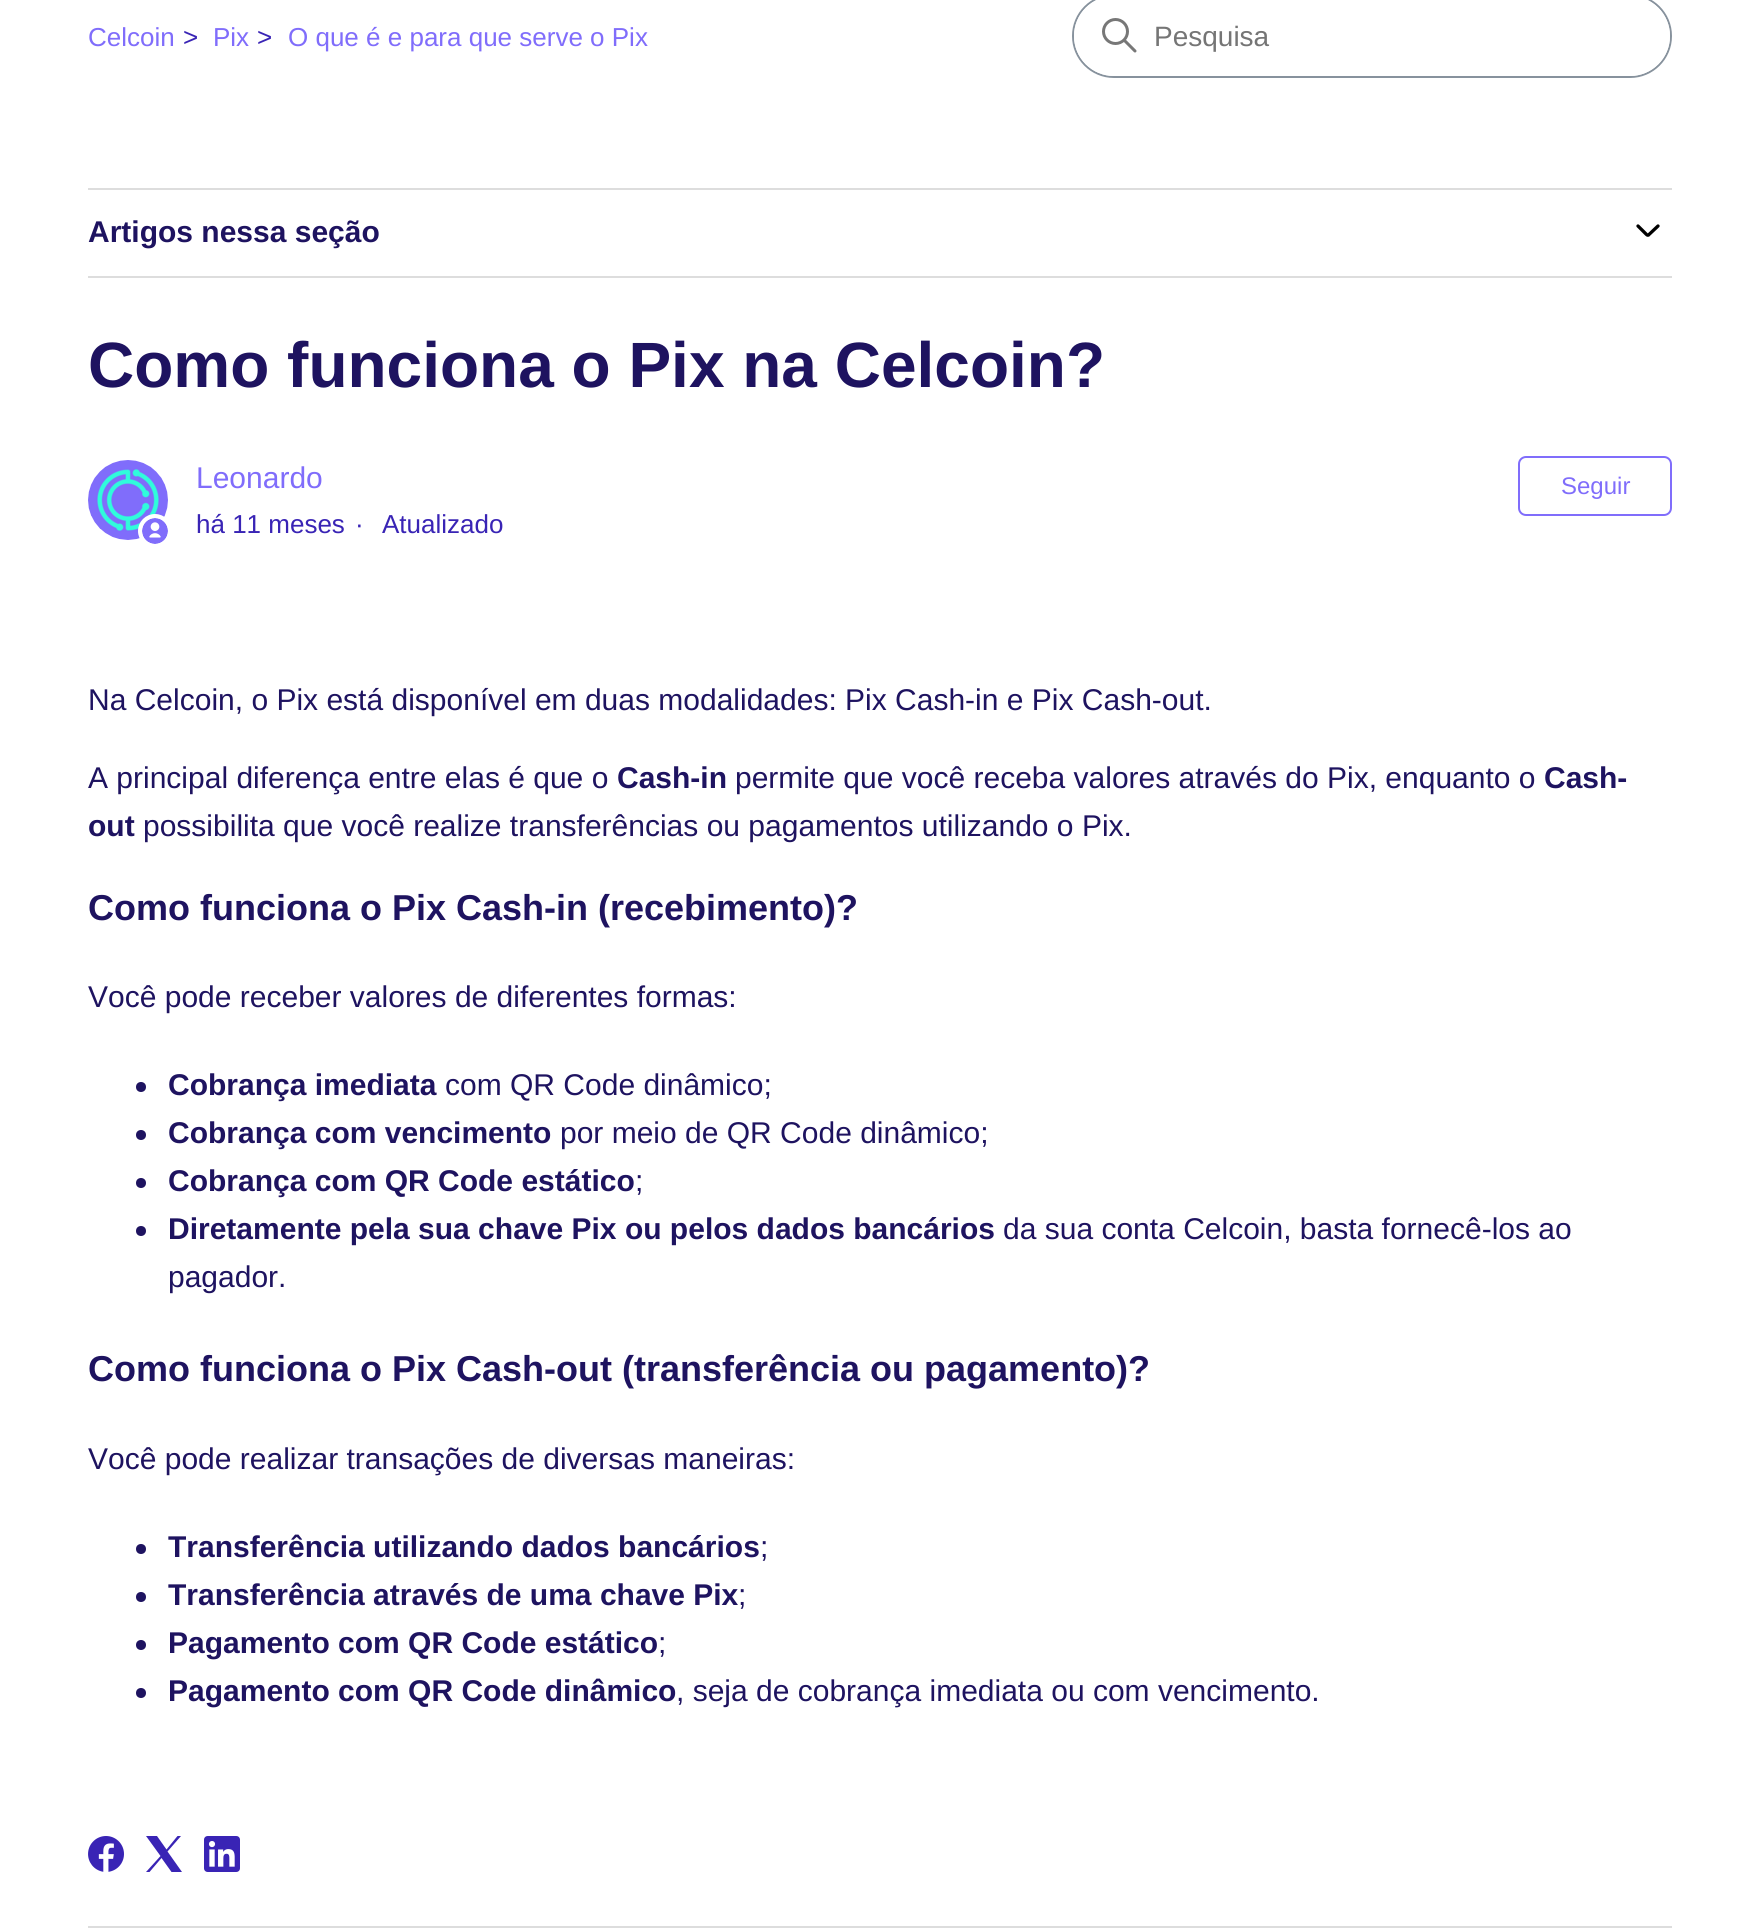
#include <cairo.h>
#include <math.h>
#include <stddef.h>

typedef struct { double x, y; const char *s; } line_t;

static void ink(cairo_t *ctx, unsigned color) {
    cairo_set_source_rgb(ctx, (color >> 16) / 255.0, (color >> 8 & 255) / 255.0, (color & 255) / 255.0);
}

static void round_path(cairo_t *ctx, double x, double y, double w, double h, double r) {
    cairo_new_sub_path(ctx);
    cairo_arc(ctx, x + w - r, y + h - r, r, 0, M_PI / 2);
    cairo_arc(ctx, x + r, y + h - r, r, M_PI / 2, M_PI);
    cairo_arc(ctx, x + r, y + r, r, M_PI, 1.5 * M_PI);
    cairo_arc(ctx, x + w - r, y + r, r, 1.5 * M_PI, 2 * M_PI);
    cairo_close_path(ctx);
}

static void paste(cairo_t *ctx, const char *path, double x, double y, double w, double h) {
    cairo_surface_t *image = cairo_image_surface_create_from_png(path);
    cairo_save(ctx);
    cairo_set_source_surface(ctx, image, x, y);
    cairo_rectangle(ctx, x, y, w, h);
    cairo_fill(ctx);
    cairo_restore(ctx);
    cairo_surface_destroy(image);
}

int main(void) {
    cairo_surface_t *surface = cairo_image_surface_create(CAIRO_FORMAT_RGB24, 1760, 1928);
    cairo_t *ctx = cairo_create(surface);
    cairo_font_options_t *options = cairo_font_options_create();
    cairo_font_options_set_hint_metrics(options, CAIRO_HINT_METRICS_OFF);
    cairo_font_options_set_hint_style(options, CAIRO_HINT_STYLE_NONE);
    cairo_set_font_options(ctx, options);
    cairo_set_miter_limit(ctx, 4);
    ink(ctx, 0xFFFFFF);
    cairo_paint(ctx);
    cairo_select_font_face(ctx, "Liberation Sans", CAIRO_FONT_SLANT_NORMAL, CAIRO_FONT_WEIGHT_NORMAL);
    cairo_set_font_size(ctx, 26);
    ink(ctx, 0x806DFB);
    cairo_move_to(ctx, 88, 46);
    cairo_show_text(ctx, "Celcoin");
    ink(ctx, 0x3924B5);
    cairo_move_to(ctx, 183, 46);
    cairo_show_text(ctx, ">");
    ink(ctx, 0x806DFB);
    cairo_move_to(ctx, 213, 46);
    cairo_show_text(ctx, "Pix");
    ink(ctx, 0x3924B5);
    cairo_move_to(ctx, 257, 46);
    cairo_show_text(ctx, ">");
    ink(ctx, 0x806DFB);
    cairo_move_to(ctx, 288, 46);
    cairo_show_text(ctx, "O que é e para que serve o Pix");
    round_path(ctx, 1073, -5, 598, 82, 41);
    ink(ctx, 0x87929D);
    cairo_stroke(ctx);
    ink(ctx, 0xFFFFFF);
    round_path(ctx, 1074, -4, 596, 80, 40);
    cairo_fill(ctx);
    cairo_arc(ctx, 1115.5, 31.5, 12, 0, 2 * M_PI);
    ink(ctx, 0x777777);
    cairo_set_line_width(ctx, 3);
    cairo_stroke(ctx);
    cairo_new_path(ctx);
    cairo_move_to(ctx, 1135, 51);
    cairo_line_to(ctx, 1124.5, 40.5);
    cairo_set_line_cap(ctx, CAIRO_LINE_CAP_ROUND);
    cairo_stroke(ctx);
    cairo_set_font_size(ctx, 28);
    ink(ctx, 0x757575);
    cairo_move_to(ctx, 1154, 46);
    cairo_show_text(ctx, "Pesquisa");
    ink(ctx, 0xDDDDDD);
    cairo_rectangle(ctx, 88, 188, 1584, 2);
    cairo_fill(ctx);
    cairo_rectangle(ctx, 88, 276, 1584, 2);
    cairo_fill(ctx);
    cairo_select_font_face(ctx, "Liberation Sans", CAIRO_FONT_SLANT_NORMAL, CAIRO_FONT_WEIGHT_BOLD);
    cairo_set_font_size(ctx, 30);
    ink(ctx, 0x1E1360);
    cairo_move_to(ctx, 88, 242);
    cairo_show_text(ctx, "Artigos nessa seção");
    cairo_new_path(ctx);
    cairo_move_to(ctx, 1638, 226);
    cairo_line_to(ctx, 1646.5, 234.5);
    cairo_curve_to(ctx, 1647.5, 235.5, 1648.5, 235.5, 1649, 234.5);
    cairo_line_to(ctx, 1658, 226);
    ink(ctx, 0x000000);
    cairo_set_line_width(ctx, 3.3);
    cairo_stroke(ctx);
    cairo_set_font_size(ctx, 64);
    ink(ctx, 0x1E1360);
    cairo_move_to(ctx, 88, 387);
    cairo_show_text(ctx, "Como funciona o Pix na Celcoin?");
    paste(ctx, "media/1.png", 88, 460, 80, 80);
    ink(ctx, 0xFFFFFF);
    cairo_arc(ctx, 155, 531, 15, 0, 2 * M_PI);
    cairo_fill_preserve(ctx);
    cairo_set_line_width(ctx, 4);
    cairo_set_line_cap(ctx, CAIRO_LINE_CAP_BUTT);
    cairo_stroke(ctx);
    paste(ctx, "media/2.png", 142, 518, 26, 26);
    cairo_select_font_face(ctx, "Liberation Sans", CAIRO_FONT_SLANT_NORMAL, CAIRO_FONT_WEIGHT_NORMAL);
    cairo_set_font_size(ctx, 30);
    ink(ctx, 0x806DFB);
    cairo_move_to(ctx, 196, 488);
    cairo_show_text(ctx, "Leonardo");
    cairo_set_font_size(ctx, 26);
    ink(ctx, 0x3924B5);
    {
        static const line_t items[] = {
            {196, 533, "há 11 meses"},
            {355, 533, "·"},
            {382, 533, "Atualizado"},
        };
        for (size_t i = 0; i < sizeof items / sizeof *items; i++) {
            cairo_move_to(ctx, items[i].x, items[i].y);
            cairo_show_text(ctx, items[i].s);
        }
    }
    round_path(ctx, 1519, 457, 152, 58, 7);
    ink(ctx, 0x806DFB);
    cairo_set_line_width(ctx, 2);
    cairo_stroke(ctx);
    cairo_set_font_size(ctx, 24);
    cairo_move_to(ctx, 1561, 494);
    cairo_show_text(ctx, "Seguir");
    cairo_set_font_size(ctx, 30);
    ink(ctx, 0x1E1360);
    cairo_move_to(ctx, 88, 710);
    cairo_show_text(ctx, "Na Celcoin, o Pix está disponível em duas modalidades: Pix Cash-in e Pix Cash-out.");
    cairo_move_to(ctx, 88, 788);
    cairo_show_text(ctx, "A principal diferença entre elas é que o");
    cairo_select_font_face(ctx, "Liberation Sans", CAIRO_FONT_SLANT_NORMAL, CAIRO_FONT_WEIGHT_BOLD);
    cairo_move_to(ctx, 617, 788);
    cairo_show_text(ctx, "Cash-in");
    cairo_select_font_face(ctx, "Liberation Sans", CAIRO_FONT_SLANT_NORMAL, CAIRO_FONT_WEIGHT_NORMAL);
    cairo_move_to(ctx, 735, 788);
    cairo_show_text(ctx, "permite que você receba valores através do Pix, enquanto o");
    cairo_select_font_face(ctx, "Liberation Sans", CAIRO_FONT_SLANT_NORMAL, CAIRO_FONT_WEIGHT_BOLD);
    cairo_move_to(ctx, 1544, 788);
    cairo_show_text(ctx, "Cash-");
    cairo_move_to(ctx, 88, 836);
    cairo_show_text(ctx, "out");
    cairo_select_font_face(ctx, "Liberation Sans", CAIRO_FONT_SLANT_NORMAL, CAIRO_FONT_WEIGHT_NORMAL);
    cairo_move_to(ctx, 143, 836);
    cairo_show_text(ctx, "possibilita que você realize transferências ou pagamentos utilizando o Pix.");
    cairo_select_font_face(ctx, "Liberation Sans", CAIRO_FONT_SLANT_NORMAL, CAIRO_FONT_WEIGHT_BOLD);
    cairo_set_font_size(ctx, 36);
    cairo_move_to(ctx, 88, 920);
    cairo_show_text(ctx, "Como funciona o Pix Cash-in (recebimento)?");
    cairo_select_font_face(ctx, "Liberation Sans", CAIRO_FONT_SLANT_NORMAL, CAIRO_FONT_WEIGHT_NORMAL);
    cairo_set_font_size(ctx, 30);
    cairo_move_to(ctx, 88, 1007);
    cairo_show_text(ctx, "Você pode receber valores de diferentes formas:");
    cairo_new_path(ctx);
    cairo_arc(ctx, 141, 1087, 5, 0, 2 * M_PI);
    cairo_fill(ctx);
    cairo_select_font_face(ctx, "Liberation Sans", CAIRO_FONT_SLANT_NORMAL, CAIRO_FONT_WEIGHT_BOLD);
    cairo_move_to(ctx, 168, 1095);
    cairo_show_text(ctx, "Cobrança imediata");
    cairo_select_font_face(ctx, "Liberation Sans", CAIRO_FONT_SLANT_NORMAL, CAIRO_FONT_WEIGHT_NORMAL);
    cairo_move_to(ctx, 445, 1095);
    cairo_show_text(ctx, "com QR Code dinâmico;");
    cairo_new_path(ctx);
    cairo_arc(ctx, 141, 1135, 5, 0, 2 * M_PI);
    cairo_fill(ctx);
    cairo_select_font_face(ctx, "Liberation Sans", CAIRO_FONT_SLANT_NORMAL, CAIRO_FONT_WEIGHT_BOLD);
    cairo_move_to(ctx, 168, 1143);
    cairo_show_text(ctx, "Cobrança com vencimento");
    cairo_select_font_face(ctx, "Liberation Sans", CAIRO_FONT_SLANT_NORMAL, CAIRO_FONT_WEIGHT_NORMAL);
    cairo_move_to(ctx, 560, 1143);
    cairo_show_text(ctx, "por meio de QR Code dinâmico;");
    cairo_new_path(ctx);
    cairo_arc(ctx, 141, 1183, 5, 0, 2 * M_PI);
    cairo_fill(ctx);
    cairo_select_font_face(ctx, "Liberation Sans", CAIRO_FONT_SLANT_NORMAL, CAIRO_FONT_WEIGHT_BOLD);
    cairo_move_to(ctx, 168, 1191);
    cairo_show_text(ctx, "Cobrança com QR Code estático");
    cairo_select_font_face(ctx, "Liberation Sans", CAIRO_FONT_SLANT_NORMAL, CAIRO_FONT_WEIGHT_NORMAL);
    cairo_move_to(ctx, 635, 1191);
    cairo_show_text(ctx, ";");
    cairo_new_path(ctx);
    cairo_arc(ctx, 141, 1231, 5, 0, 2 * M_PI);
    cairo_fill(ctx);
    cairo_select_font_face(ctx, "Liberation Sans", CAIRO_FONT_SLANT_NORMAL, CAIRO_FONT_WEIGHT_BOLD);
    cairo_move_to(ctx, 168, 1239);
    cairo_show_text(ctx, "Diretamente pela sua chave Pix ou pelos dados bancários");
    cairo_select_font_face(ctx, "Liberation Sans", CAIRO_FONT_SLANT_NORMAL, CAIRO_FONT_WEIGHT_NORMAL);
    cairo_move_to(ctx, 1003, 1239);
    cairo_show_text(ctx, "da sua conta Celcoin, basta fornecê-los ao");
    cairo_move_to(ctx, 168, 1287);
    cairo_show_text(ctx, "pagador.");
    cairo_select_font_face(ctx, "Liberation Sans", CAIRO_FONT_SLANT_NORMAL, CAIRO_FONT_WEIGHT_BOLD);
    cairo_set_font_size(ctx, 36);
    cairo_move_to(ctx, 88, 1381);
    cairo_show_text(ctx, "Como funciona o Pix Cash-out (transferência ou pagamento)?");
    cairo_select_font_face(ctx, "Liberation Sans", CAIRO_FONT_SLANT_NORMAL, CAIRO_FONT_WEIGHT_NORMAL);
    cairo_set_font_size(ctx, 30);
    cairo_move_to(ctx, 88, 1469);
    cairo_show_text(ctx, "Você pode realizar transações de diversas maneiras:");
    cairo_new_path(ctx);
    cairo_arc(ctx, 141, 1549, 5, 0, 2 * M_PI);
    cairo_fill(ctx);
    cairo_select_font_face(ctx, "Liberation Sans", CAIRO_FONT_SLANT_NORMAL, CAIRO_FONT_WEIGHT_BOLD);
    cairo_move_to(ctx, 168, 1557);
    cairo_show_text(ctx, "Transferência utilizando dados bancários");
    cairo_select_font_face(ctx, "Liberation Sans", CAIRO_FONT_SLANT_NORMAL, CAIRO_FONT_WEIGHT_NORMAL);
    cairo_move_to(ctx, 760, 1557);
    cairo_show_text(ctx, ";");
    cairo_new_path(ctx);
    cairo_arc(ctx, 141, 1597, 5, 0, 2 * M_PI);
    cairo_fill(ctx);
    cairo_select_font_face(ctx, "Liberation Sans", CAIRO_FONT_SLANT_NORMAL, CAIRO_FONT_WEIGHT_BOLD);
    cairo_move_to(ctx, 168, 1605);
    cairo_show_text(ctx, "Transferência através de uma chave Pix");
    cairo_select_font_face(ctx, "Liberation Sans", CAIRO_FONT_SLANT_NORMAL, CAIRO_FONT_WEIGHT_NORMAL);
    cairo_move_to(ctx, 738, 1605);
    cairo_show_text(ctx, ";");
    cairo_new_path(ctx);
    cairo_arc(ctx, 141, 1645, 5, 0, 2 * M_PI);
    cairo_fill(ctx);
    cairo_select_font_face(ctx, "Liberation Sans", CAIRO_FONT_SLANT_NORMAL, CAIRO_FONT_WEIGHT_BOLD);
    cairo_move_to(ctx, 168, 1653);
    cairo_show_text(ctx, "Pagamento com QR Code estático");
    cairo_select_font_face(ctx, "Liberation Sans", CAIRO_FONT_SLANT_NORMAL, CAIRO_FONT_WEIGHT_NORMAL);
    cairo_move_to(ctx, 658, 1653);
    cairo_show_text(ctx, ";");
    cairo_new_path(ctx);
    cairo_arc(ctx, 141, 1693, 5, 0, 2 * M_PI);
    cairo_fill(ctx);
    cairo_select_font_face(ctx, "Liberation Sans", CAIRO_FONT_SLANT_NORMAL, CAIRO_FONT_WEIGHT_BOLD);
    cairo_move_to(ctx, 168, 1701);
    cairo_show_text(ctx, "Pagamento com QR Code dinâmico");
    cairo_select_font_face(ctx, "Liberation Sans", CAIRO_FONT_SLANT_NORMAL, CAIRO_FONT_WEIGHT_NORMAL);
    cairo_move_to(ctx, 676, 1701);
    cairo_show_text(ctx, ", seja de cobrança imediata ou com vencimento.");
    paste(ctx, "media/3.png", 88, 1836, 36, 36);
    ink(ctx, 0x3924B5);
    cairo_new_path(ctx);
    cairo_move_to(ctx, 146, 1836);
    cairo_line_to(ctx, 157, 1836);
    cairo_line_to(ctx, 166.5, 1849.5);
    cairo_line_to(ctx, 177.5, 1836);
    cairo_line_to(ctx, 181, 1836);
    cairo_line_to(ctx, 167.5, 1851.5);
    cairo_line_to(ctx, 182, 1872);
    cairo_line_to(ctx, 171.5, 1872);
    cairo_line_to(ctx, 161.5, 1858);
    cairo_line_to(ctx, 149.5, 1872);
    cairo_line_to(ctx, 146, 1872);
    cairo_line_to(ctx, 160.5, 1856);
    cairo_close_path(ctx);
    cairo_fill(ctx);
    paste(ctx, "media/4.png", 204, 1836, 36, 36);
    ink(ctx, 0xDDDDDD);
    cairo_rectangle(ctx, 88, 1926, 1584, 2);
    cairo_fill(ctx);
    cairo_surface_write_to_png(surface, "image.png");
    cairo_font_options_destroy(options);
    cairo_destroy(ctx);
    cairo_surface_destroy(surface);
    return 0;
}
